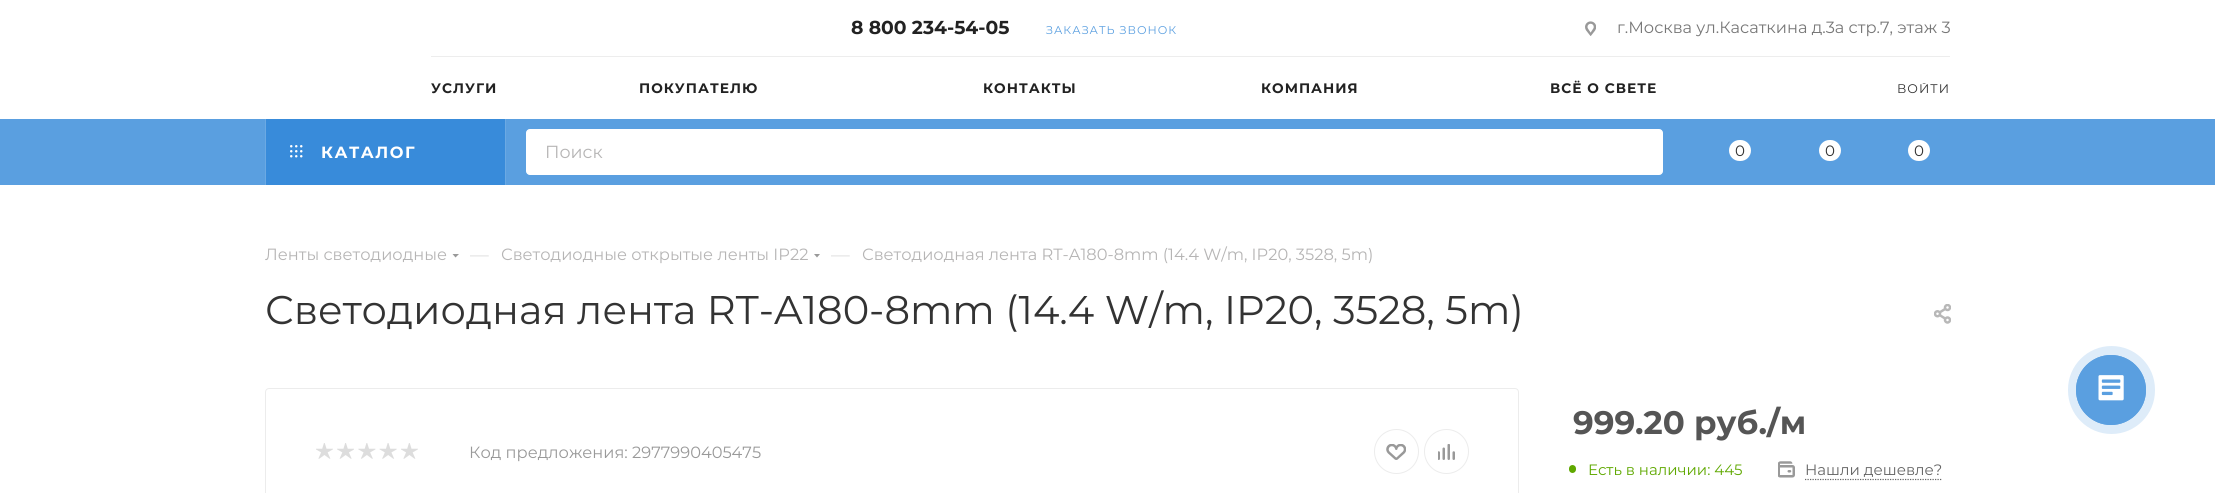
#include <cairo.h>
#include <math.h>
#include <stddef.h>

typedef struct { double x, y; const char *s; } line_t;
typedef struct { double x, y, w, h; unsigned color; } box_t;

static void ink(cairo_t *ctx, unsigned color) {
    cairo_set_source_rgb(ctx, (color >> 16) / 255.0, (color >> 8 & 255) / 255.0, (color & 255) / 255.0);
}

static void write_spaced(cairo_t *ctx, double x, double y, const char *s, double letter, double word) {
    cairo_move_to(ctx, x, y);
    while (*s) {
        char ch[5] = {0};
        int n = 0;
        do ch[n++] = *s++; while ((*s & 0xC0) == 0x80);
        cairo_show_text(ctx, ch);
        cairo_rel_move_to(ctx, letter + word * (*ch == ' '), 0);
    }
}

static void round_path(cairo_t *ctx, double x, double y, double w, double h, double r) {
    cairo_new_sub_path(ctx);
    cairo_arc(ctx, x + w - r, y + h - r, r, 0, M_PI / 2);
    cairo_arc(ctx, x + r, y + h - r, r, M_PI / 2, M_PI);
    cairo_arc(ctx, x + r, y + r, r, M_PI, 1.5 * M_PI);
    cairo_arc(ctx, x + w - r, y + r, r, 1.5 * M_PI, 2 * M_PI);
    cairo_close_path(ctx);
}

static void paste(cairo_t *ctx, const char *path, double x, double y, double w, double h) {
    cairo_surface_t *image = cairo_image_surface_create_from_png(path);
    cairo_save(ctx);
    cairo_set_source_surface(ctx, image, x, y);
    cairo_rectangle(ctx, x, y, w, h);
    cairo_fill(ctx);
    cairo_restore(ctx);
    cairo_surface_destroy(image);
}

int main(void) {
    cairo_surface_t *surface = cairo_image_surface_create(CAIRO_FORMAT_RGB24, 2215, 493);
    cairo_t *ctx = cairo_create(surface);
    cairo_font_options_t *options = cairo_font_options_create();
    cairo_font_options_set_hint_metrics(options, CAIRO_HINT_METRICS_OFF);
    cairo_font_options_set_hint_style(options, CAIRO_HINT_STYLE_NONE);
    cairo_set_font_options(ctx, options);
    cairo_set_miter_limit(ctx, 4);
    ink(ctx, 0xFFFFFF);
    cairo_paint(ctx);
    cairo_select_font_face(ctx, "Montserrat", CAIRO_FONT_SLANT_NORMAL, CAIRO_FONT_WEIGHT_BOLD);
    cairo_set_font_size(ctx, 18.75);
    ink(ctx, 0x222222);
    cairo_move_to(ctx, 851, 34);
    cairo_show_text(ctx, "8 800 234-54-05");
    cairo_select_font_face(ctx, "Montserrat", CAIRO_FONT_SLANT_NORMAL, CAIRO_FONT_WEIGHT_NORMAL);
    cairo_set_font_size(ctx, 11.25);
    ink(ctx, 0x5A9FE0);
    write_spaced(ctx, 1046, 34, "ЗАКАЗАТЬ ЗВОНОК", 1, 0);
    paste(ctx, "media/1.png", 1585, 21, 11, 15);
    cairo_set_font_size(ctx, 16.25);
    ink(ctx, 0x777777);
    cairo_move_to(ctx, 1617, 33);
    cairo_show_text(ctx, "г.Москва ул.Касаткина д.3а стр.7, этаж 3");
    ink(ctx, 0xEDEDED);
    cairo_rectangle(ctx, 431, 56, 1519, 1);
    cairo_fill(ctx);
    cairo_select_font_face(ctx, "Montserrat", CAIRO_FONT_SLANT_NORMAL, CAIRO_FONT_WEIGHT_BOLD);
    cairo_set_font_size(ctx, 13.75);
    ink(ctx, 0x222222);
    {
        static const line_t items[] = {
            {431, 93, "УСЛУГИ"},
            {639, 93, "ПОКУПАТЕЛЮ"},
            {983, 93, "КОНТАКТЫ"},
            {1261, 93, "КОМПАНИЯ"},
            {1550, 93, "ВСЁ О СВЕТЕ"},
        };
        for (size_t i = 0; i < sizeof items / sizeof *items; i++) {
            write_spaced(ctx, items[i].x, items[i].y, items[i].s, 1, 0);
        }
    }
    cairo_save(ctx);
    cairo_rectangle(ctx, 1886, 83, 64, 15);
    cairo_clip(ctx);
    cairo_select_font_face(ctx, "Montserrat", CAIRO_FONT_SLANT_NORMAL, CAIRO_FONT_WEIGHT_NORMAL);
    cairo_set_font_size(ctx, 12.5);
    ink(ctx, 0x333333);
    write_spaced(ctx, 1897, 93, "ВОЙТИ", 1, 0);
    cairo_restore(ctx);
    {
        static const box_t items[] = {
            {0, 119, 2215, 66, 0x5A9FE0},
            {505, 119, 1, 66, 0x6BA9E3},
            {265, 119, 1, 66, 0x6BA9E3},
            {266, 119, 239, 66, 0x388BDA},
        };
        for (size_t i = 0; i < sizeof items / sizeof *items; i++) {
            ink(ctx, items[i].color);
            cairo_rectangle(ctx, items[i].x, items[i].y, items[i].w, items[i].h);
            cairo_fill(ctx);
        }
    }
    paste(ctx, "media/2.png", 290, 145, 13, 13);
    cairo_set_font_size(ctx, 16.25);
    ink(ctx, 0xFFFFFF);
    write_spaced(ctx, 321, 158, "КАТАЛОГ", 1.5, 0);
    round_path(ctx, 526.5, 129.5, 1136, 45, 3.5);
    cairo_fill_preserve(ctx);
    cairo_set_line_width(ctx, 1);
    cairo_stroke(ctx);
    cairo_select_font_face(ctx, "Montserrat", CAIRO_FONT_SLANT_NORMAL, CAIRO_FONT_WEIGHT_NORMAL);
    cairo_set_font_size(ctx, 17.5);
    ink(ctx, 0xB6B5B5);
    cairo_move_to(ctx, 545, 158);
    cairo_show_text(ctx, "Поиск");
    ink(ctx, 0xFFFFFF);
    round_path(ctx, 1729, 140, 22, 21, 10.5);
    cairo_fill(ctx);
    cairo_set_font_size(ctx, 15);
    ink(ctx, 0x333333);
    cairo_move_to(ctx, 1735, 156);
    cairo_show_text(ctx, "0");
    ink(ctx, 0xFFFFFF);
    round_path(ctx, 1819, 140, 22, 21, 10.5);
    cairo_fill(ctx);
    ink(ctx, 0x333333);
    cairo_move_to(ctx, 1825, 156);
    cairo_show_text(ctx, "0");
    ink(ctx, 0xFFFFFF);
    round_path(ctx, 1908, 140, 22, 21, 10.5);
    cairo_fill(ctx);
    ink(ctx, 0x333333);
    cairo_move_to(ctx, 1914, 156);
    cairo_show_text(ctx, "0");
    cairo_set_font_size(ctx, 16.25);
    ink(ctx, 0xB6B5B5);
    cairo_move_to(ctx, 265, 260);
    cairo_show_text(ctx, "Ленты светодиодные");
    ink(ctx, 0x999999);
    cairo_set_fill_rule(ctx, CAIRO_FILL_RULE_EVEN_ODD);
    cairo_new_path(ctx);
    cairo_move_to(ctx, 452.5, 254);
    cairo_line_to(ctx, 459, 254);
    cairo_line_to(ctx, 455.5, 257.5);
    cairo_close_path(ctx);
    cairo_fill(ctx);
    cairo_set_font_size(ctx, 18.75);
    ink(ctx, 0xDDDDDD);
    cairo_move_to(ctx, 470, 261);
    cairo_show_text(ctx, "—");
    cairo_set_font_size(ctx, 16.25);
    ink(ctx, 0xB6B5B5);
    cairo_move_to(ctx, 501, 260);
    cairo_show_text(ctx, "Светодиодные открытые ленты IP22");
    ink(ctx, 0x999999);
    cairo_new_path(ctx);
    cairo_move_to(ctx, 814, 254);
    cairo_line_to(ctx, 820, 254);
    cairo_line_to(ctx, 817, 257.5);
    cairo_close_path(ctx);
    cairo_fill(ctx);
    cairo_set_font_size(ctx, 18.75);
    ink(ctx, 0xDDDDDD);
    cairo_move_to(ctx, 831, 261);
    cairo_show_text(ctx, "—");
    cairo_set_font_size(ctx, 16.25);
    ink(ctx, 0xB6B5B5);
    cairo_move_to(ctx, 862, 260);
    cairo_show_text(ctx, "Светодиодная лента RT-A180-8mm (14.4 W/m, IP20, 3528, 5m)");
    cairo_set_font_size(ctx, 40);
    ink(ctx, 0x333333);
    cairo_move_to(ctx, 265, 324);
    cairo_show_text(ctx, "Светодиодная лента RT-A180-8mm (14.4 W/m, IP20, 3528, 5m)");
    paste(ctx, "media/3.png", 1934, 304, 17, 20);
    round_path(ctx, 265.5, 388.5, 1253, 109, 3.5);
    ink(ctx, 0xECECEC);
    cairo_stroke(ctx);
    paste(ctx, "media/4.png", 316, 443, 17, 16);
    paste(ctx, "media/5.png", 337, 443, 17, 16);
    paste(ctx, "media/6.png", 358, 443, 18, 16);
    paste(ctx, "media/7.png", 379, 443, 18, 16);
    paste(ctx, "media/4.png", 401, 443, 17, 16);
    cairo_set_font_size(ctx, 16.25);
    ink(ctx, 0x999999);
    cairo_move_to(ctx, 469, 458);
    cairo_show_text(ctx, "Код предложения: 2977990405475");
    cairo_new_path(ctx);
    cairo_arc(ctx, 1396.5, 451.5, 22, 0, 2 * M_PI);
    ink(ctx, 0xECECEC);
    cairo_stroke(ctx);
    paste(ctx, "media/8.png", 1386, 444, 20, 16);
    cairo_arc(ctx, 1446.5, 451.5, 22, 0, 2 * M_PI);
    cairo_stroke(ctx);
    paste(ctx, "media/9.png", 1438, 444, 17, 16);
    cairo_select_font_face(ctx, "Montserrat", CAIRO_FONT_SLANT_NORMAL, CAIRO_FONT_WEIGHT_BOLD);
    cairo_set_font_size(ctx, 32.5);
    ink(ctx, 0x555555);
    cairo_move_to(ctx, 1573, 434);
    cairo_show_text(ctx, "999.20 руб./м");
    ink(ctx, 0x5FA800);
    round_path(ctx, 1569, 465, 7, 8, 3.5);
    cairo_fill(ctx);
    cairo_select_font_face(ctx, "Montserrat", CAIRO_FONT_SLANT_NORMAL, CAIRO_FONT_WEIGHT_NORMAL);
    cairo_set_font_size(ctx, 15);
    cairo_move_to(ctx, 1588, 475);
    cairo_show_text(ctx, "Есть в наличии: 445");
    paste(ctx, "media/10.png", 1778, 461, 17, 17);
    ink(ctx, 0x666666);
    cairo_move_to(ctx, 1805, 475);
    cairo_show_text(ctx, "Нашли дешевле?");
    cairo_new_path(ctx);
    cairo_move_to(ctx, 1805, 479.5);
    cairo_line_to(ctx, 1942.5, 479.5);
    cairo_set_line_width(ctx, 1.2);
    cairo_set_dash(ctx, (double[]){1.25, 1.25}, 2, 0);
    cairo_stroke(ctx);
    ink(ctx, 0xDEECF9);
    round_path(ctx, 2068, 346, 87, 88, 43.5);
    cairo_fill(ctx);
    cairo_arc(ctx, 2111, 390, 34.5, 0, 2 * M_PI);
    ink(ctx, 0x5A9FE0);
    cairo_set_line_width(ctx, 1);
    cairo_set_dash(ctx, NULL, 0, 0);
    cairo_stroke(ctx);
    cairo_arc(ctx, 2111, 390, 35, 0, 2 * M_PI);
    cairo_fill(ctx);
    paste(ctx, "media/11.png", 2098, 375, 26, 26);
    cairo_surface_write_to_png(surface, "image.png");
    cairo_font_options_destroy(options);
    cairo_destroy(ctx);
    cairo_surface_destroy(surface);
    return 0;
}
